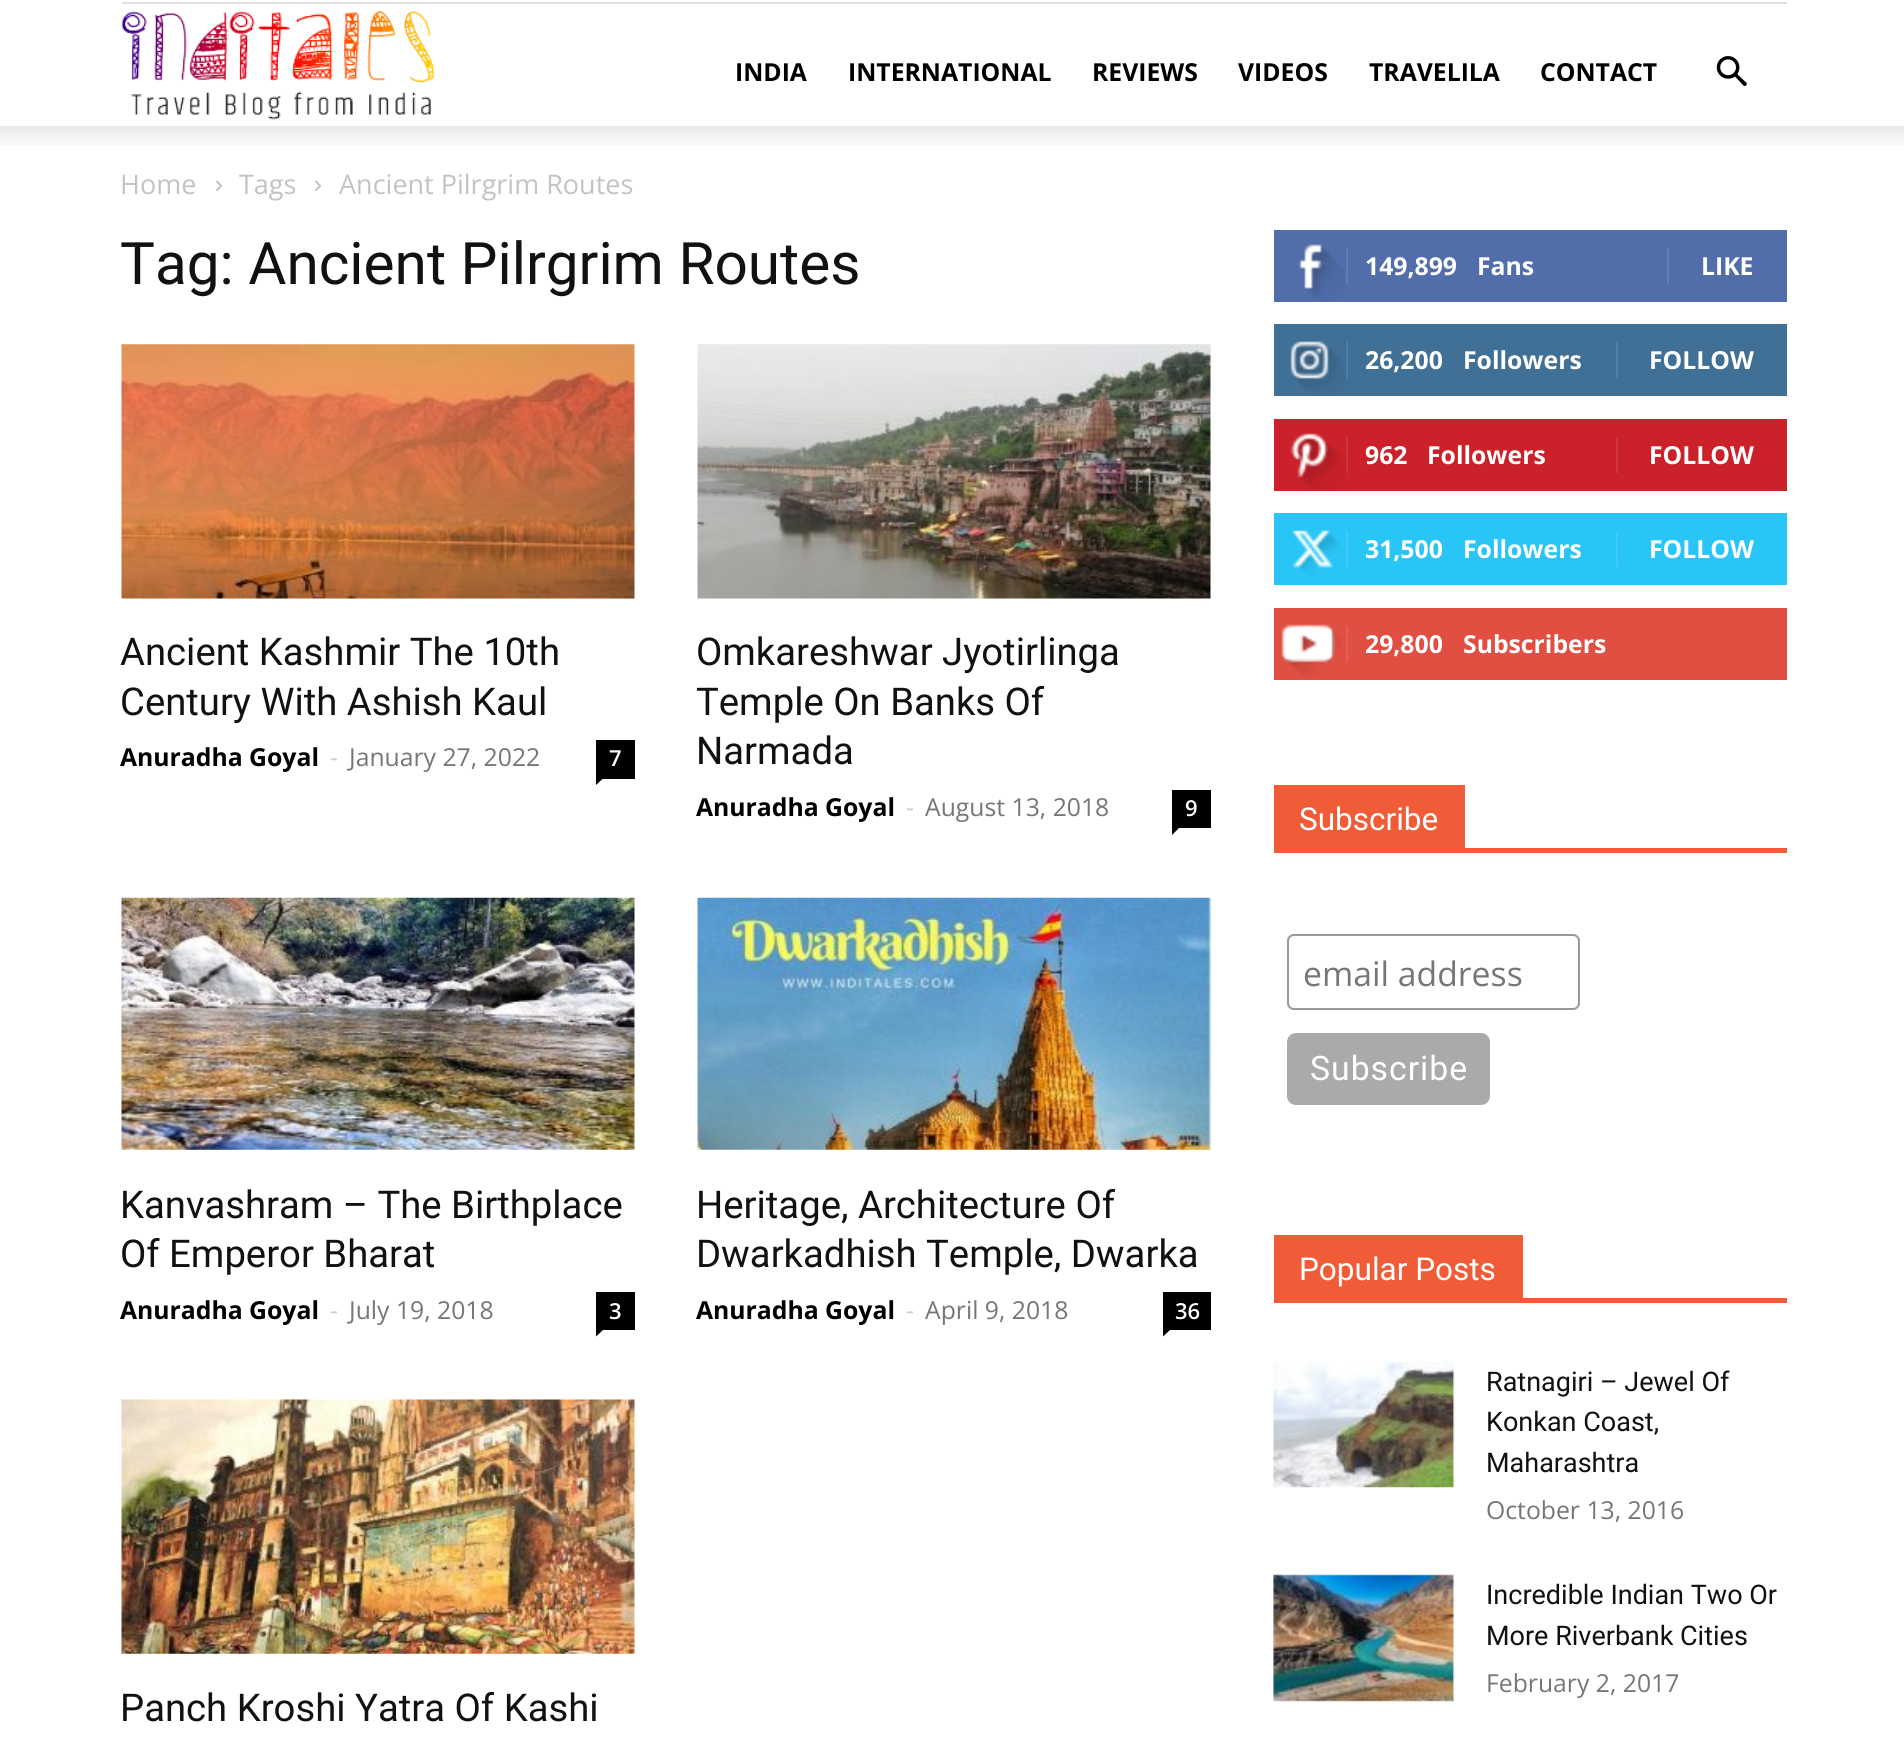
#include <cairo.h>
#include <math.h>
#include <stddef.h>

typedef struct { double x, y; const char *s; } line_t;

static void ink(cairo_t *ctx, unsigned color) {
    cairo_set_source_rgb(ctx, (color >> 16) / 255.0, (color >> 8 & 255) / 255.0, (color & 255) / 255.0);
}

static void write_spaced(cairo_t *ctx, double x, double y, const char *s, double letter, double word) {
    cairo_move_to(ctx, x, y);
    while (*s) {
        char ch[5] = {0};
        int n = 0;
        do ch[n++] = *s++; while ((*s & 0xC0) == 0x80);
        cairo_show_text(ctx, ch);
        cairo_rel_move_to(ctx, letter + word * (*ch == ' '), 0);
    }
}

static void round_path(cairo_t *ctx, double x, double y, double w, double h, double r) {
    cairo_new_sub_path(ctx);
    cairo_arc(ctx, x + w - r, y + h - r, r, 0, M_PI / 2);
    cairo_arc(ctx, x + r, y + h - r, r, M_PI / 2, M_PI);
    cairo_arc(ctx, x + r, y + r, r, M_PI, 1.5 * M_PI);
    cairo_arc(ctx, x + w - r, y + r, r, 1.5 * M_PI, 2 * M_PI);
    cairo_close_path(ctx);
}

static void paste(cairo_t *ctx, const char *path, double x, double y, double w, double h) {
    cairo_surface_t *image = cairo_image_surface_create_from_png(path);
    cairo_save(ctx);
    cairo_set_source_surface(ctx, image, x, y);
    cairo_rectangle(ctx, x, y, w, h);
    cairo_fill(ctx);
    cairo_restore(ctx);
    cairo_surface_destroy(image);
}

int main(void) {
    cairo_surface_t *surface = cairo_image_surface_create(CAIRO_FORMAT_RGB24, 1904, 1740);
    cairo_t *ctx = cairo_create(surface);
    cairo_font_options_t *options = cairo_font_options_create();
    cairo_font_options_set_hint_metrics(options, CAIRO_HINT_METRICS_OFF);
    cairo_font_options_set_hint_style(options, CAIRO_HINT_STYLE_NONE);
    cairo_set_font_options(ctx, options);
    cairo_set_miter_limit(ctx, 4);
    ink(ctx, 0xFFFFFF);
    cairo_paint(ctx);
    ink(ctx, 0xE0E0E0);
    cairo_rectangle(ctx, 122, 2, 1665, 2);
    cairo_fill(ctx);
    paste(ctx, "media/1.png", 121, 11, 314, 109);
    cairo_select_font_face(ctx, "Open Sans", CAIRO_FONT_SLANT_NORMAL, CAIRO_FONT_WEIGHT_BOLD);
    cairo_set_font_size(ctx, 24.75);
    ink(ctx, 0x000000);
    {
        static const line_t items[] = {
            {735, 81, "INDIA"},
            {848, 81, "INTERNATIONAL"},
            {1092, 81, "REVIEWS"},
            {1238, 81, "VIDEOS"},
            {1369, 81, "TRAVELILA"},
            {1540, 81, "CONTACT"},
        };
        for (size_t i = 0; i < sizeof items / sizeof *items; i++) {
            cairo_move_to(ctx, items[i].x, items[i].y);
            cairo_show_text(ctx, items[i].s);
        }
    }
    paste(ctx, "media/2.png", 1716, 56, 31, 30);
    paste(ctx, "media/3.png", 0, 126, 1904, 19);
    cairo_select_font_face(ctx, "Open Sans", CAIRO_FONT_SLANT_NORMAL, CAIRO_FONT_WEIGHT_NORMAL);
    cairo_set_font_size(ctx, 27);
    ink(ctx, 0xC3C3C3);
    cairo_move_to(ctx, 120, 194);
    cairo_show_text(ctx, "Home");
    paste(ctx, "media/4.png", 216, 180, 6, 11);
    cairo_move_to(ctx, 239, 194);
    cairo_show_text(ctx, "Tags");
    paste(ctx, "media/4.png", 315, 180, 6, 11);
    cairo_move_to(ctx, 339, 194);
    cairo_show_text(ctx, "Ancient Pilrgrim Routes");
    cairo_select_font_face(ctx, "Roboto", CAIRO_FONT_SLANT_NORMAL, CAIRO_FONT_WEIGHT_NORMAL);
    cairo_set_font_size(ctx, 58.5);
    ink(ctx, 0x111111);
    cairo_move_to(ctx, 120, 284);
    cairo_show_text(ctx, "Tag: Ancient Pilrgrim Routes");
    paste(ctx, "media/5.png", 121, 344, 514, 255);
    cairo_set_font_size(ctx, 38.25);
    cairo_move_to(ctx, 120, 665);
    cairo_show_text(ctx, "Ancient Kashmir The 10th");
    cairo_move_to(ctx, 120, 715);
    cairo_show_text(ctx, "Century With Ashish Kaul");
    cairo_select_font_face(ctx, "Open Sans", CAIRO_FONT_SLANT_NORMAL, CAIRO_FONT_WEIGHT_BOLD);
    cairo_set_font_size(ctx, 24.75);
    ink(ctx, 0x000000);
    cairo_move_to(ctx, 120, 766);
    cairo_show_text(ctx, "Anuradha Goyal");
    cairo_select_font_face(ctx, "Open Sans", CAIRO_FONT_SLANT_NORMAL, CAIRO_FONT_WEIGHT_NORMAL);
    ink(ctx, 0xCCCCCC);
    cairo_move_to(ctx, 330, 766);
    cairo_show_text(ctx, "-");
    ink(ctx, 0x767676);
    cairo_move_to(ctx, 349, 766);
    cairo_show_text(ctx, "January 27, 2022");
    ink(ctx, 0x000000);
    cairo_rectangle(ctx, 596, 740, 39, 39);
    cairo_fill(ctx);
    cairo_select_font_face(ctx, "Open Sans SemiBold", CAIRO_FONT_SLANT_NORMAL, CAIRO_FONT_WEIGHT_NORMAL);
    cairo_set_font_size(ctx, 22);
    ink(ctx, 0xFFFFFF);
    cairo_move_to(ctx, 609, 766);
    cairo_show_text(ctx, "7");
    ink(ctx, 0x000000);
    cairo_new_path(ctx);
    cairo_move_to(ctx, 596, 778.5);
    cairo_line_to(ctx, 603, 778.5);
    cairo_line_to(ctx, 596, 785);
    cairo_close_path(ctx);
    cairo_fill(ctx);
    paste(ctx, "media/6.png", 697, 344, 514, 255);
    cairo_select_font_face(ctx, "Roboto", CAIRO_FONT_SLANT_NORMAL, CAIRO_FONT_WEIGHT_NORMAL);
    cairo_set_font_size(ctx, 38.25);
    ink(ctx, 0x111111);
    {
        static const line_t items[] = {
            {696, 665, "Omkareshwar Jyotirlinga"},
            {696, 715, "Temple On Banks Of"},
            {696, 764, "Narmada"},
        };
        for (size_t i = 0; i < sizeof items / sizeof *items; i++) {
            cairo_move_to(ctx, items[i].x, items[i].y);
            cairo_show_text(ctx, items[i].s);
        }
    }
    cairo_select_font_face(ctx, "Open Sans", CAIRO_FONT_SLANT_NORMAL, CAIRO_FONT_WEIGHT_BOLD);
    cairo_set_font_size(ctx, 24.75);
    ink(ctx, 0x000000);
    cairo_move_to(ctx, 696, 816);
    cairo_show_text(ctx, "Anuradha Goyal");
    cairo_select_font_face(ctx, "Open Sans", CAIRO_FONT_SLANT_NORMAL, CAIRO_FONT_WEIGHT_NORMAL);
    ink(ctx, 0xCCCCCC);
    cairo_move_to(ctx, 906, 816);
    cairo_show_text(ctx, "-");
    ink(ctx, 0x767676);
    cairo_move_to(ctx, 925, 816);
    cairo_show_text(ctx, "August 13, 2018");
    ink(ctx, 0x000000);
    cairo_rectangle(ctx, 1172, 790, 39, 38);
    cairo_fill(ctx);
    cairo_select_font_face(ctx, "Open Sans SemiBold", CAIRO_FONT_SLANT_NORMAL, CAIRO_FONT_WEIGHT_NORMAL);
    cairo_set_font_size(ctx, 22);
    ink(ctx, 0xFFFFFF);
    cairo_move_to(ctx, 1185, 816);
    cairo_show_text(ctx, "9");
    ink(ctx, 0x000000);
    cairo_new_path(ctx);
    cairo_move_to(ctx, 1172, 828);
    cairo_line_to(ctx, 1179, 828);
    cairo_line_to(ctx, 1172, 835);
    cairo_close_path(ctx);
    cairo_fill(ctx);
    paste(ctx, "media/7.png", 121, 897, 514, 253);
    cairo_select_font_face(ctx, "Roboto", CAIRO_FONT_SLANT_NORMAL, CAIRO_FONT_WEIGHT_NORMAL);
    cairo_set_font_size(ctx, 38.25);
    ink(ctx, 0x111111);
    cairo_move_to(ctx, 120, 1218);
    cairo_show_text(ctx, "Kanvashram – The Birthplace");
    cairo_move_to(ctx, 120, 1267);
    cairo_show_text(ctx, "Of Emperor Bharat");
    cairo_select_font_face(ctx, "Open Sans", CAIRO_FONT_SLANT_NORMAL, CAIRO_FONT_WEIGHT_BOLD);
    cairo_set_font_size(ctx, 24.75);
    ink(ctx, 0x000000);
    cairo_move_to(ctx, 120, 1319);
    cairo_show_text(ctx, "Anuradha Goyal");
    cairo_select_font_face(ctx, "Open Sans", CAIRO_FONT_SLANT_NORMAL, CAIRO_FONT_WEIGHT_NORMAL);
    ink(ctx, 0xCCCCCC);
    cairo_move_to(ctx, 330, 1319);
    cairo_show_text(ctx, "-");
    ink(ctx, 0x767676);
    cairo_move_to(ctx, 349, 1319);
    cairo_show_text(ctx, "July 19, 2018");
    ink(ctx, 0x000000);
    cairo_rectangle(ctx, 596, 1292, 39, 38);
    cairo_fill(ctx);
    cairo_select_font_face(ctx, "Open Sans SemiBold", CAIRO_FONT_SLANT_NORMAL, CAIRO_FONT_WEIGHT_NORMAL);
    cairo_set_font_size(ctx, 22);
    ink(ctx, 0xFFFFFF);
    cairo_move_to(ctx, 609, 1319);
    cairo_show_text(ctx, "3");
    ink(ctx, 0x000000);
    cairo_new_path(ctx);
    cairo_move_to(ctx, 596, 1330);
    cairo_line_to(ctx, 603, 1330);
    cairo_line_to(ctx, 596, 1336.5);
    cairo_close_path(ctx);
    cairo_fill(ctx);
    paste(ctx, "media/8.png", 697, 897, 514, 253);
    cairo_select_font_face(ctx, "Roboto", CAIRO_FONT_SLANT_NORMAL, CAIRO_FONT_WEIGHT_NORMAL);
    cairo_set_font_size(ctx, 38.25);
    ink(ctx, 0x111111);
    cairo_move_to(ctx, 696, 1218);
    cairo_show_text(ctx, "Heritage, Architecture Of");
    cairo_move_to(ctx, 696, 1267);
    cairo_show_text(ctx, "Dwarkadhish Temple, Dwarka");
    cairo_select_font_face(ctx, "Open Sans", CAIRO_FONT_SLANT_NORMAL, CAIRO_FONT_WEIGHT_BOLD);
    cairo_set_font_size(ctx, 24.75);
    ink(ctx, 0x000000);
    cairo_move_to(ctx, 696, 1319);
    cairo_show_text(ctx, "Anuradha Goyal");
    cairo_select_font_face(ctx, "Open Sans", CAIRO_FONT_SLANT_NORMAL, CAIRO_FONT_WEIGHT_NORMAL);
    ink(ctx, 0xCCCCCC);
    cairo_move_to(ctx, 906, 1319);
    cairo_show_text(ctx, "-");
    ink(ctx, 0x767676);
    cairo_move_to(ctx, 925, 1319);
    cairo_show_text(ctx, "April 9, 2018");
    ink(ctx, 0x000000);
    cairo_rectangle(ctx, 1163, 1292, 48, 38);
    cairo_fill(ctx);
    cairo_select_font_face(ctx, "Open Sans SemiBold", CAIRO_FONT_SLANT_NORMAL, CAIRO_FONT_WEIGHT_NORMAL);
    cairo_set_font_size(ctx, 22);
    ink(ctx, 0xFFFFFF);
    cairo_move_to(ctx, 1175, 1319);
    cairo_show_text(ctx, "36");
    ink(ctx, 0x000000);
    cairo_new_path(ctx);
    cairo_move_to(ctx, 1163, 1330);
    cairo_line_to(ctx, 1170, 1330);
    cairo_line_to(ctx, 1163, 1336.5);
    cairo_close_path(ctx);
    cairo_fill(ctx);
    paste(ctx, "media/9.png", 121, 1399, 514, 255);
    cairo_select_font_face(ctx, "Roboto", CAIRO_FONT_SLANT_NORMAL, CAIRO_FONT_WEIGHT_NORMAL);
    cairo_set_font_size(ctx, 38.25);
    ink(ctx, 0x111111);
    cairo_move_to(ctx, 120, 1721);
    cairo_show_text(ctx, "Panch Kroshi Yatra Of Kashi");
    ink(ctx, 0x516EAB);
    cairo_rectangle(ctx, 1274, 230, 513, 72);
    cairo_fill(ctx);
    paste(ctx, "media/10.png", 1299, 244, 46, 57);
    ink(ctx, 0x627DB3);
    cairo_rectangle(ctx, 1346, 248, 2, 36);
    cairo_fill(ctx);
    cairo_select_font_face(ctx, "Open Sans", CAIRO_FONT_SLANT_NORMAL, CAIRO_FONT_WEIGHT_BOLD);
    cairo_set_font_size(ctx, 24.75);
    ink(ctx, 0xFFFFFF);
    cairo_move_to(ctx, 1365, 275);
    cairo_show_text(ctx, "149,899");
    cairo_move_to(ctx, 1477, 275);
    cairo_show_text(ctx, "Fans");
    ink(ctx, 0x627DB3);
    cairo_rectangle(ctx, 1667, 248, 2, 36);
    cairo_fill(ctx);
    ink(ctx, 0xFFFFFF);
    cairo_move_to(ctx, 1701, 275);
    cairo_show_text(ctx, "LIKE");
    ink(ctx, 0x417096);
    cairo_rectangle(ctx, 1274, 324, 513, 72);
    cairo_fill(ctx);
    paste(ctx, "media/11.png", 1290, 341, 54, 53);
    ink(ctx, 0x547EA1);
    cairo_rectangle(ctx, 1346, 342, 2, 36);
    cairo_fill(ctx);
    ink(ctx, 0xFFFFFF);
    cairo_move_to(ctx, 1365, 369);
    cairo_show_text(ctx, "26,200");
    cairo_move_to(ctx, 1463, 369);
    cairo_show_text(ctx, "Followers");
    ink(ctx, 0x547EA1);
    cairo_rectangle(ctx, 1616, 342, 2, 36);
    cairo_fill(ctx);
    ink(ctx, 0xFFFFFF);
    cairo_move_to(ctx, 1649, 369);
    cairo_show_text(ctx, "FOLLOW");
    ink(ctx, 0xCA212A);
    cairo_rectangle(ctx, 1274, 419, 513, 72);
    cairo_fill(ctx);
    paste(ctx, "media/12.png", 1290, 433, 55, 57);
    ink(ctx, 0xCF373F);
    cairo_rectangle(ctx, 1346, 437, 2, 36);
    cairo_fill(ctx);
    ink(ctx, 0xFFFFFF);
    cairo_move_to(ctx, 1365, 464);
    cairo_show_text(ctx, "962");
    cairo_move_to(ctx, 1427, 464);
    cairo_show_text(ctx, "Followers");
    ink(ctx, 0xCF373F);
    cairo_rectangle(ctx, 1616, 437, 2, 36);
    cairo_fill(ctx);
    ink(ctx, 0xFFFFFF);
    cairo_move_to(ctx, 1649, 464);
    cairo_show_text(ctx, "FOLLOW");
    ink(ctx, 0x29C5F6);
    cairo_rectangle(ctx, 1274, 513, 513, 72);
    cairo_fill(ctx);
    paste(ctx, "media/13.png", 1291, 530, 51, 47);
    ink(ctx, 0x3ECBF7);
    cairo_rectangle(ctx, 1346, 531, 2, 36);
    cairo_fill(ctx);
    ink(ctx, 0xFFFFFF);
    cairo_move_to(ctx, 1365, 558);
    cairo_show_text(ctx, "31,500");
    cairo_move_to(ctx, 1463, 558);
    cairo_show_text(ctx, "Followers");
    ink(ctx, 0x3ECBF7);
    cairo_rectangle(ctx, 1616, 531, 2, 36);
    cairo_fill(ctx);
    ink(ctx, 0xFFFFFF);
    cairo_move_to(ctx, 1649, 558);
    cairo_show_text(ctx, "FOLLOW");
    ink(ctx, 0xE14E42);
    cairo_rectangle(ctx, 1274, 608, 513, 72);
    cairo_fill(ctx);
    paste(ctx, "media/14.png", 1281, 624, 62, 54);
    ink(ctx, 0xE46055);
    cairo_rectangle(ctx, 1346, 626, 2, 36);
    cairo_fill(ctx);
    ink(ctx, 0xFFFFFF);
    cairo_move_to(ctx, 1365, 653);
    cairo_show_text(ctx, "29,800");
    cairo_move_to(ctx, 1463, 653);
    cairo_show_text(ctx, "Subscribers");
    ink(ctx, 0xEF5C37);
    cairo_rectangle(ctx, 1274, 848, 513, 5);
    cairo_fill(ctx);
    cairo_rectangle(ctx, 1274, 785, 191, 63);
    cairo_fill(ctx);
    cairo_select_font_face(ctx, "Roboto", CAIRO_FONT_SLANT_NORMAL, CAIRO_FONT_WEIGHT_NORMAL);
    cairo_set_font_size(ctx, 31.5);
    ink(ctx, 0xFFFFFF);
    cairo_move_to(ctx, 1299, 830);
    cairo_show_text(ctx, "Subscribe");
    round_path(ctx, 1288, 935, 291, 74, 6);
    ink(ctx, 0x999999);
    cairo_stroke(ctx);
    cairo_select_font_face(ctx, "Open Sans", CAIRO_FONT_SLANT_NORMAL, CAIRO_FONT_WEIGHT_NORMAL);
    cairo_set_font_size(ctx, 33.75);
    ink(ctx, 0x767676);
    cairo_move_to(ctx, 1303, 986);
    cairo_show_text(ctx, "email address");
    ink(ctx, 0xAAAAAA);
    round_path(ctx, 1287, 1033, 203, 72, 9);
    cairo_fill(ctx);
    cairo_select_font_face(ctx, "Roboto", CAIRO_FONT_SLANT_NORMAL, CAIRO_FONT_WEIGHT_NORMAL);
    ink(ctx, 0xFFFFFF);
    write_spaced(ctx, 1310, 1080, "Subscribe", 1, 0);
    ink(ctx, 0xEF5C37);
    cairo_rectangle(ctx, 1274, 1298, 513, 5);
    cairo_fill(ctx);
    cairo_rectangle(ctx, 1274, 1235, 249, 63);
    cairo_fill(ctx);
    cairo_set_font_size(ctx, 31.5);
    ink(ctx, 0xFFFFFF);
    cairo_move_to(ctx, 1299, 1280);
    cairo_show_text(ctx, "Popular Posts");
    paste(ctx, "media/15.png", 1273, 1361, 182, 127);
    cairo_set_font_size(ctx, 27);
    ink(ctx, 0x111111);
    {
        static const line_t items[] = {
            {1486, 1391, "Ratnagiri – Jewel Of"},
            {1486, 1431, "Konkan Coast,"},
            {1486, 1472, "Maharashtra"},
        };
        for (size_t i = 0; i < sizeof items / sizeof *items; i++) {
            cairo_move_to(ctx, items[i].x, items[i].y);
            cairo_show_text(ctx, items[i].s);
        }
    }
    cairo_select_font_face(ctx, "Open Sans", CAIRO_FONT_SLANT_NORMAL, CAIRO_FONT_WEIGHT_NORMAL);
    cairo_set_font_size(ctx, 24.75);
    ink(ctx, 0x767676);
    cairo_move_to(ctx, 1486, 1519);
    cairo_show_text(ctx, "October 13, 2016");
    paste(ctx, "media/16.png", 1273, 1574, 182, 128);
    cairo_select_font_face(ctx, "Roboto", CAIRO_FONT_SLANT_NORMAL, CAIRO_FONT_WEIGHT_NORMAL);
    cairo_set_font_size(ctx, 27);
    ink(ctx, 0x111111);
    cairo_move_to(ctx, 1486, 1604);
    cairo_show_text(ctx, "Incredible Indian Two Or");
    cairo_move_to(ctx, 1486, 1645);
    cairo_show_text(ctx, "More Riverbank Cities");
    cairo_select_font_face(ctx, "Open Sans", CAIRO_FONT_SLANT_NORMAL, CAIRO_FONT_WEIGHT_NORMAL);
    cairo_set_font_size(ctx, 24.75);
    ink(ctx, 0x767676);
    cairo_move_to(ctx, 1486, 1692);
    cairo_show_text(ctx, "February 2, 2017");
    cairo_surface_write_to_png(surface, "image.png");
    cairo_font_options_destroy(options);
    cairo_destroy(ctx);
    cairo_surface_destroy(surface);
    return 0;
}
